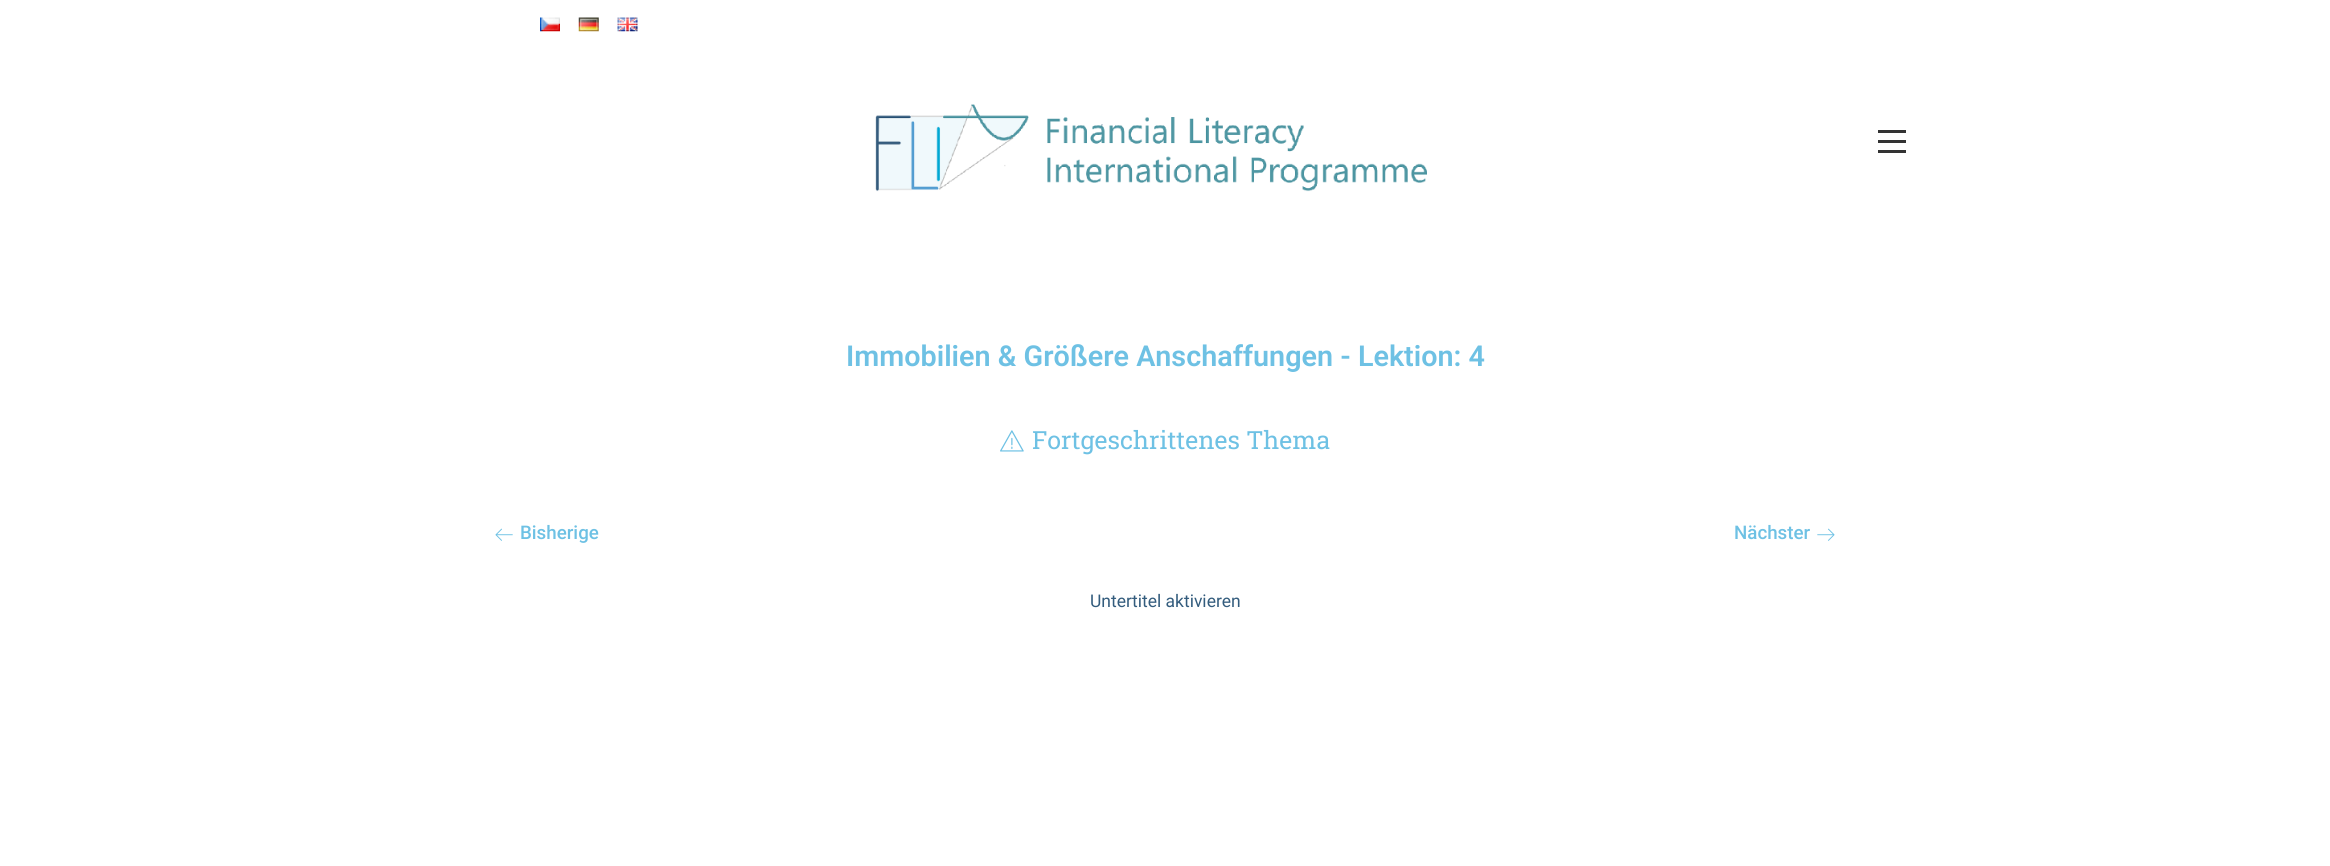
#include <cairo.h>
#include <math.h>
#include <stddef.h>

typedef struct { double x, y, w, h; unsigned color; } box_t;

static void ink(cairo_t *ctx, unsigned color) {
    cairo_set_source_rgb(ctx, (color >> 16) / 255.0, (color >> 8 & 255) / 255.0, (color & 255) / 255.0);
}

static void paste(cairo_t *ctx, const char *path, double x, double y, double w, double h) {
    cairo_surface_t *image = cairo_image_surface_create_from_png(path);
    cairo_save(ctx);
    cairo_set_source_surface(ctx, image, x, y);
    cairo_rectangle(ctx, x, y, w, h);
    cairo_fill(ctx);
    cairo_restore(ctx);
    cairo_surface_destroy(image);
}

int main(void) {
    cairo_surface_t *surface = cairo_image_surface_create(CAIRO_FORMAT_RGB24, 2330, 866);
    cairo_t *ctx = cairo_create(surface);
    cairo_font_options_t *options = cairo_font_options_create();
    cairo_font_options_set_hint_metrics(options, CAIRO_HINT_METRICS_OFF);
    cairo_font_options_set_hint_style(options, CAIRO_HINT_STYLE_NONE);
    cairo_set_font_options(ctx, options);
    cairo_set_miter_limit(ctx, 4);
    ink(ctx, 0xFFFFFF);
    cairo_paint(ctx);
    paste(ctx, "media/1.png", 540, 17, 20, 15);
    paste(ctx, "media/2.png", 578, 17, 21, 15);
    paste(ctx, "media/3.png", 617, 17, 21, 15);
    paste(ctx, "media/4.png", 875, 104, 552, 88);
    {
        static const box_t items[] = {
            {1878, 140, 28, 3, 0x333333},
            {1878, 130, 28, 3, 0x333333},
            {1878, 150, 28, 3, 0x333333},
        };
        for (size_t i = 0; i < sizeof items / sizeof *items; i++) {
            ink(ctx, items[i].color);
            cairo_rectangle(ctx, items[i].x, items[i].y, items[i].w, items[i].h);
            cairo_fill(ctx);
        }
    }
    cairo_select_font_face(ctx, "Roboto SemiBold", CAIRO_FONT_SLANT_NORMAL, CAIRO_FONT_WEIGHT_NORMAL);
    cairo_set_font_size(ctx, 28.75);
    ink(ctx, 0x6EC1E4);
    cairo_move_to(ctx, 846, 366);
    cairo_show_text(ctx, "Immobilien & Größere Anschaffungen - Lektion: 4");
    paste(ctx, "media/5.png", 1000, 430, 24, 22);
    cairo_select_font_face(ctx, "Roboto Slab", CAIRO_FONT_SLANT_NORMAL, CAIRO_FONT_WEIGHT_NORMAL);
    cairo_set_font_size(ctx, 25);
    cairo_move_to(ctx, 1032, 449);
    cairo_show_text(ctx, "Fortgeschrittenes Thema");
    paste(ctx, "media/6.png", 495, 528, 18, 13);
    cairo_select_font_face(ctx, "Roboto Medium", CAIRO_FONT_SLANT_NORMAL, CAIRO_FONT_WEIGHT_NORMAL);
    cairo_set_font_size(ctx, 18.75);
    cairo_move_to(ctx, 520, 539);
    cairo_show_text(ctx, "Bisherige");
    cairo_move_to(ctx, 1734, 539);
    cairo_show_text(ctx, "Nächster");
    paste(ctx, "media/7.png", 1817, 528, 18, 13);
    cairo_select_font_face(ctx, "Roboto", CAIRO_FONT_SLANT_NORMAL, CAIRO_FONT_WEIGHT_NORMAL);
    cairo_set_font_size(ctx, 17.5);
    ink(ctx, 0x335C7D);
    cairo_move_to(ctx, 1090, 607);
    cairo_show_text(ctx, "Untertitel aktivieren");
    cairo_surface_write_to_png(surface, "image.png");
    cairo_font_options_destroy(options);
    cairo_destroy(ctx);
    cairo_surface_destroy(surface);
    return 0;
}
